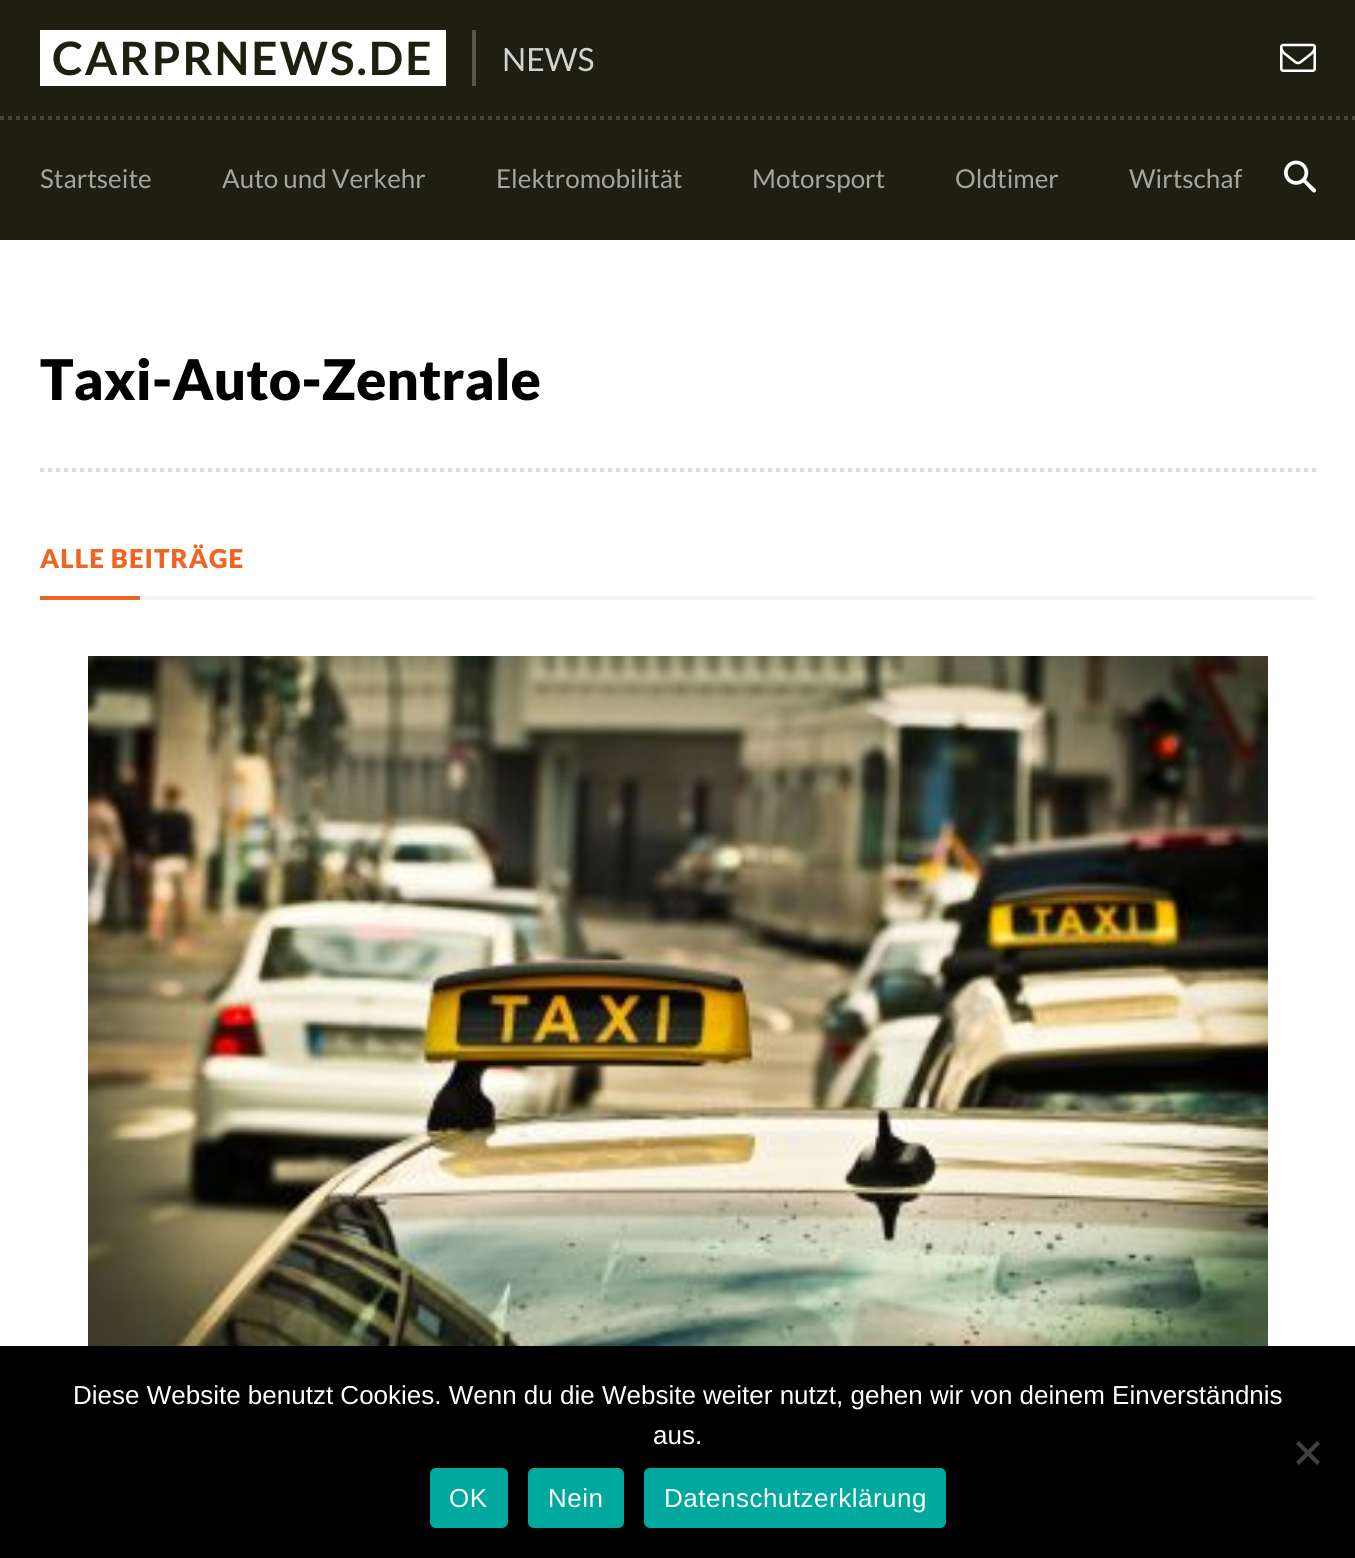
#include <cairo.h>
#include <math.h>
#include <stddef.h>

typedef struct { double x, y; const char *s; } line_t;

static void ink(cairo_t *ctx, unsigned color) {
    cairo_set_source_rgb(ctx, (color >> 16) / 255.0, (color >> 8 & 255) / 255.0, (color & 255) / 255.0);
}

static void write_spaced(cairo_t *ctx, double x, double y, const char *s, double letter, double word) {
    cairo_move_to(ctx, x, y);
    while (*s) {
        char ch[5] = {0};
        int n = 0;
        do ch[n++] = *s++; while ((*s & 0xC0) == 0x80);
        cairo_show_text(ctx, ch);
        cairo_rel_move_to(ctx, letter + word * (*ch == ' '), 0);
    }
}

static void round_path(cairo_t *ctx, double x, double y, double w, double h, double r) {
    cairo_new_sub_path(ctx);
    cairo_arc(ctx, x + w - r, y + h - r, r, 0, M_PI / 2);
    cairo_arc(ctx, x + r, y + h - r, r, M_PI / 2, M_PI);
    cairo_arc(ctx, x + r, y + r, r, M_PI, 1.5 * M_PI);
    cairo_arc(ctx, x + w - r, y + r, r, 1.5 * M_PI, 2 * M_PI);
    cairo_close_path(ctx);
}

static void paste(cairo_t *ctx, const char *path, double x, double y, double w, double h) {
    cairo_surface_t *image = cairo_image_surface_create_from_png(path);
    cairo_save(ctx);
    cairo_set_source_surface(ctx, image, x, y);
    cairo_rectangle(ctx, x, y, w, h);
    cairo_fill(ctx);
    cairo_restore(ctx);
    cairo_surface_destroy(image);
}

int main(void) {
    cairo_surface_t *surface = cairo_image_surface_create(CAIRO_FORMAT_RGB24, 1355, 1558);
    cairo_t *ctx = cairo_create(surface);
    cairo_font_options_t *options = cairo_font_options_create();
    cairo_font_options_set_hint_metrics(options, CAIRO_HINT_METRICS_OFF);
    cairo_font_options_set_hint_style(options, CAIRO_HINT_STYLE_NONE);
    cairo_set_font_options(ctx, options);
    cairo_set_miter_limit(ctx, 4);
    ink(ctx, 0xFFFFFF);
    cairo_paint(ctx);
    ink(ctx, 0x1F1F11);
    cairo_rectangle(ctx, 0, 0, 1355, 240);
    cairo_fill(ctx);
    cairo_new_path(ctx);
    cairo_move_to(ctx, 0, 118);
    cairo_line_to(ctx, 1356, 118);
    ink(ctx, 0x47473C);
    cairo_set_line_width(ctx, 4);
    cairo_set_dash(ctx, (double[]){4, 4}, 2, 0);
    cairo_stroke(ctx);
    ink(ctx, 0xFFFFFF);
    cairo_rectangle(ctx, 40, 30, 406, 56);
    cairo_fill(ctx);
    cairo_select_font_face(ctx, "Lato", CAIRO_FONT_SLANT_NORMAL, CAIRO_FONT_WEIGHT_BOLD);
    cairo_set_font_size(ctx, 46);
    ink(ctx, 0x1F1F11);
    write_spaced(ctx, 52, 75, "CARPRNEWS.DE", 2, 0);
    ink(ctx, 0x57574D);
    cairo_rectangle(ctx, 472, 30, 4, 56);
    cairo_fill(ctx);
    cairo_select_font_face(ctx, "Lato", CAIRO_FONT_SLANT_NORMAL, CAIRO_FONT_WEIGHT_NORMAL);
    cairo_set_font_size(ctx, 32);
    ink(ctx, 0xD2D2CF);
    cairo_move_to(ctx, 502, 71);
    cairo_show_text(ctx, "NEWS");
    paste(ctx, "media/1.png", 1280, 43, 36, 29);
    cairo_set_font_size(ctx, 26);
    ink(ctx, 0xA5A5A0);
    {
        static const line_t items[] = {
            {40, 188, "Startseite"},
            {222, 188, "Auto und Verkehr"},
            {496, 188, "Elektromobilität"},
            {752, 188, "Motorsport"},
            {955, 188, "Oldtimer"},
            {1129, 188, "Wirtschaf"},
        };
        for (size_t i = 0; i < sizeof items / sizeof *items; i++) {
            cairo_move_to(ctx, items[i].x, items[i].y);
            cairo_show_text(ctx, items[i].s);
        }
    }
    paste(ctx, "media/2.png", 1284, 160, 33, 33);
    cairo_select_font_face(ctx, "Lato Black", CAIRO_FONT_SLANT_NORMAL, CAIRO_FONT_WEIGHT_NORMAL);
    cairo_set_font_size(ctx, 56);
    ink(ctx, 0x000000);
    cairo_move_to(ctx, 40, 400);
    cairo_show_text(ctx, "Taxi-Auto-Zentrale");
    cairo_new_path(ctx);
    cairo_move_to(ctx, 40, 470);
    cairo_line_to(ctx, 1316, 470);
    ink(ctx, 0xDEDEDE);
    cairo_stroke(ctx);
    cairo_set_font_size(ctx, 26);
    ink(ctx, 0xEF6421);
    write_spaced(ctx, 40, 568, "ALLE BEITRÄGE", 1, 0);
    cairo_rectangle(ctx, 40, 596, 100, 4);
    cairo_fill(ctx);
    ink(ctx, 0xF5F5F5);
    cairo_rectangle(ctx, 140, 596, 1176, 4);
    cairo_fill(ctx);
    paste(ctx, "media/3.png", 88, 656, 1180, 690);
    ink(ctx, 0x000000);
    cairo_rectangle(ctx, 0, 1346, 1355, 212);
    cairo_fill(ctx);
    cairo_select_font_face(ctx, "Liberation Sans", CAIRO_FONT_SLANT_NORMAL, CAIRO_FONT_WEIGHT_NORMAL);
    ink(ctx, 0xFFFFFF);
    cairo_move_to(ctx, 73, 1404);
    cairo_show_text(ctx, "Diese Website benutzt Cookies. Wenn du die Website weiter nutzt, gehen wir von deinem Einverständnis");
    cairo_move_to(ctx, 653, 1444);
    cairo_show_text(ctx, "aus.");
    ink(ctx, 0x404040);
    cairo_new_path(ctx);
    cairo_move_to(ctx, 1317, 1441);
    cairo_line_to(ctx, 1320, 1444);
    cairo_line_to(ctx, 1299, 1465);
    cairo_line_to(ctx, 1296, 1462);
    cairo_close_path(ctx);
    cairo_fill(ctx);
    cairo_new_path(ctx);
    cairo_move_to(ctx, 1296, 1444);
    cairo_line_to(ctx, 1299, 1441);
    cairo_line_to(ctx, 1320, 1462);
    cairo_line_to(ctx, 1317, 1465);
    cairo_close_path(ctx);
    cairo_fill(ctx);
    ink(ctx, 0x00A99D);
    round_path(ctx, 430, 1468, 78, 60, 6);
    cairo_fill(ctx);
    ink(ctx, 0xFFFFFF);
    write_spaced(ctx, 449, 1507, "OK", 0.5, 0);
    ink(ctx, 0x00A99D);
    round_path(ctx, 528, 1468, 96, 60, 6);
    cairo_fill(ctx);
    ink(ctx, 0xFFFFFF);
    write_spaced(ctx, 548, 1507, "Nein", 0.5, 0);
    ink(ctx, 0x00A99D);
    round_path(ctx, 644, 1468, 302, 60, 6);
    cairo_fill(ctx);
    ink(ctx, 0xFFFFFF);
    write_spaced(ctx, 664, 1507, "Datenschutzerklärung", 0.5, 0);
    cairo_surface_write_to_png(surface, "image.png");
    cairo_font_options_destroy(options);
    cairo_destroy(ctx);
    cairo_surface_destroy(surface);
    return 0;
}
